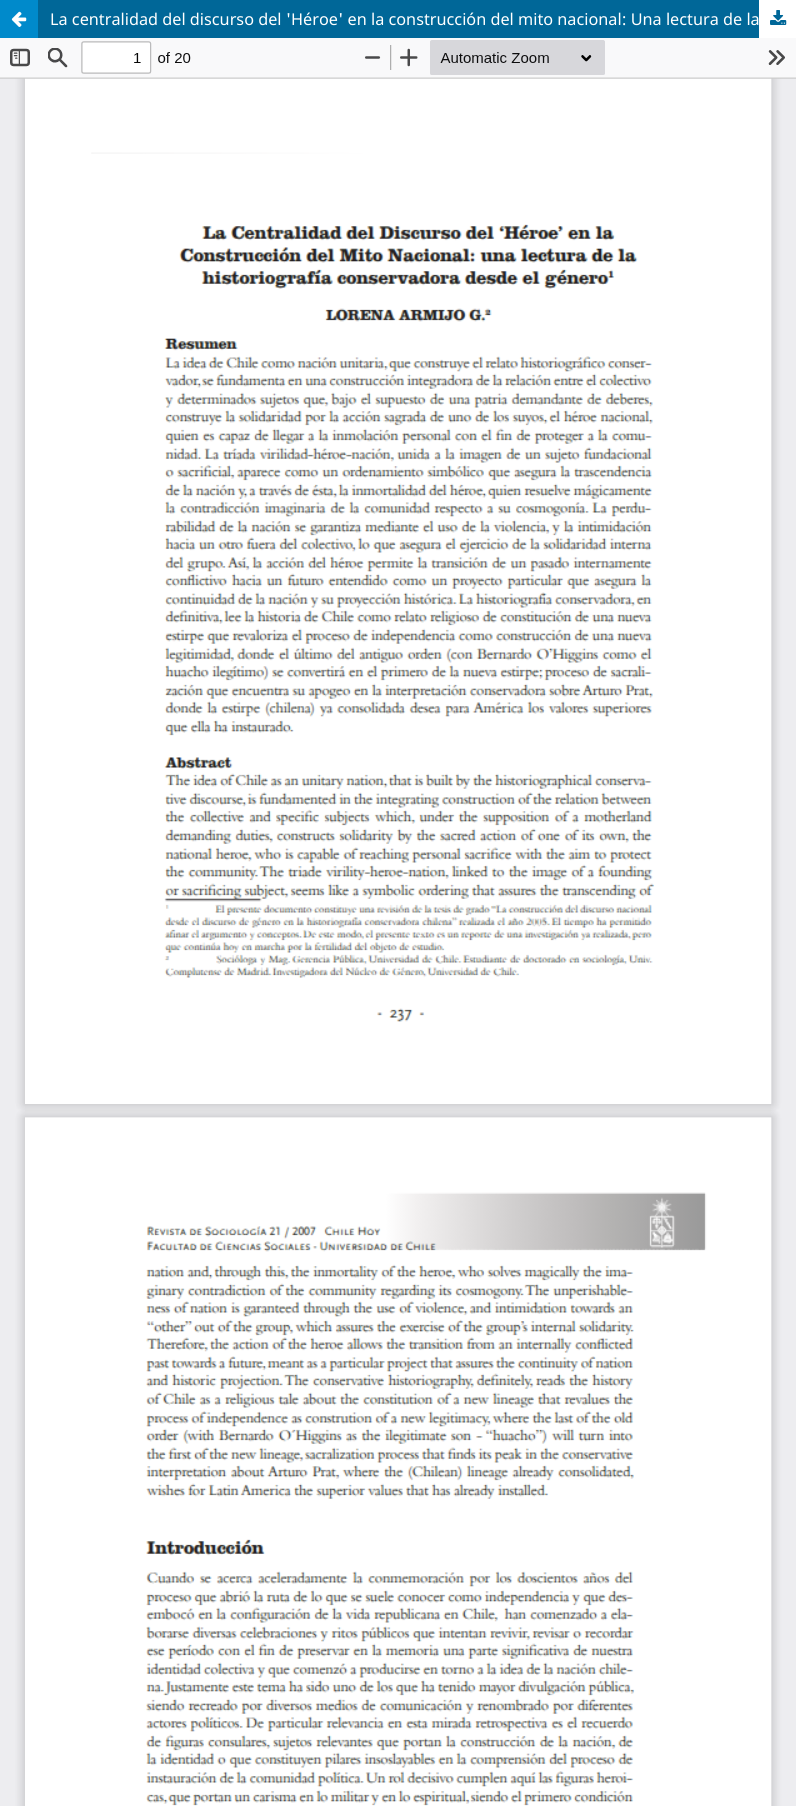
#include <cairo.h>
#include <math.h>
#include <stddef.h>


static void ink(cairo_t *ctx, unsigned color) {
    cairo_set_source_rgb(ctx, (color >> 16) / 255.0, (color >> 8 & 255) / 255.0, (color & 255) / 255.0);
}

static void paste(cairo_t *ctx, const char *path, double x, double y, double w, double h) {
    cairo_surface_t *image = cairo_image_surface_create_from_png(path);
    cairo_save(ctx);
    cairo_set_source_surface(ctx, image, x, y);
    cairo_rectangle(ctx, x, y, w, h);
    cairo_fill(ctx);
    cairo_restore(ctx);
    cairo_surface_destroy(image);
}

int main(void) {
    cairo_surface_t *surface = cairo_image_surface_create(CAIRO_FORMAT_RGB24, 796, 1806);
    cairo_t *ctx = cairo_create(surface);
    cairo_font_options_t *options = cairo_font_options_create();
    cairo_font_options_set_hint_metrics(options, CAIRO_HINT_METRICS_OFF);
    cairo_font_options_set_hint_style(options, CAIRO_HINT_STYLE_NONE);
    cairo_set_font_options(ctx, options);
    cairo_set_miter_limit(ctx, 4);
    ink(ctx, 0xFFFFFF);
    cairo_paint(ctx);
    ink(ctx, 0x006798);
    cairo_rectangle(ctx, 38, 0, 721, 38);
    cairo_fill(ctx);
    ink(ctx, 0x008ACB);
    cairo_rectangle(ctx, 0, 0, 38, 38);
    cairo_fill(ctx);
    paste(ctx, "media/1.png", 11, 11, 16, 16);
    cairo_select_font_face(ctx, "Noto Sans", CAIRO_FONT_SLANT_NORMAL, CAIRO_FONT_WEIGHT_NORMAL);
    cairo_set_font_size(ctx, 16.25);
    ink(ctx, 0xFFFFFF);
    cairo_move_to(ctx, 50, 25);
    cairo_show_text(ctx, "La centralidad del discurso del 'Héroe' en la construcción del mito nacional: Una lectura de la");
    paste(ctx, "media/2.png", 770, 10, 17, 15);
    paste(ctx, "media/3.png", 0, 38, 796, 1768);
    cairo_surface_write_to_png(surface, "image.png");
    cairo_font_options_destroy(options);
    cairo_destroy(ctx);
    cairo_surface_destroy(surface);
    return 0;
}
